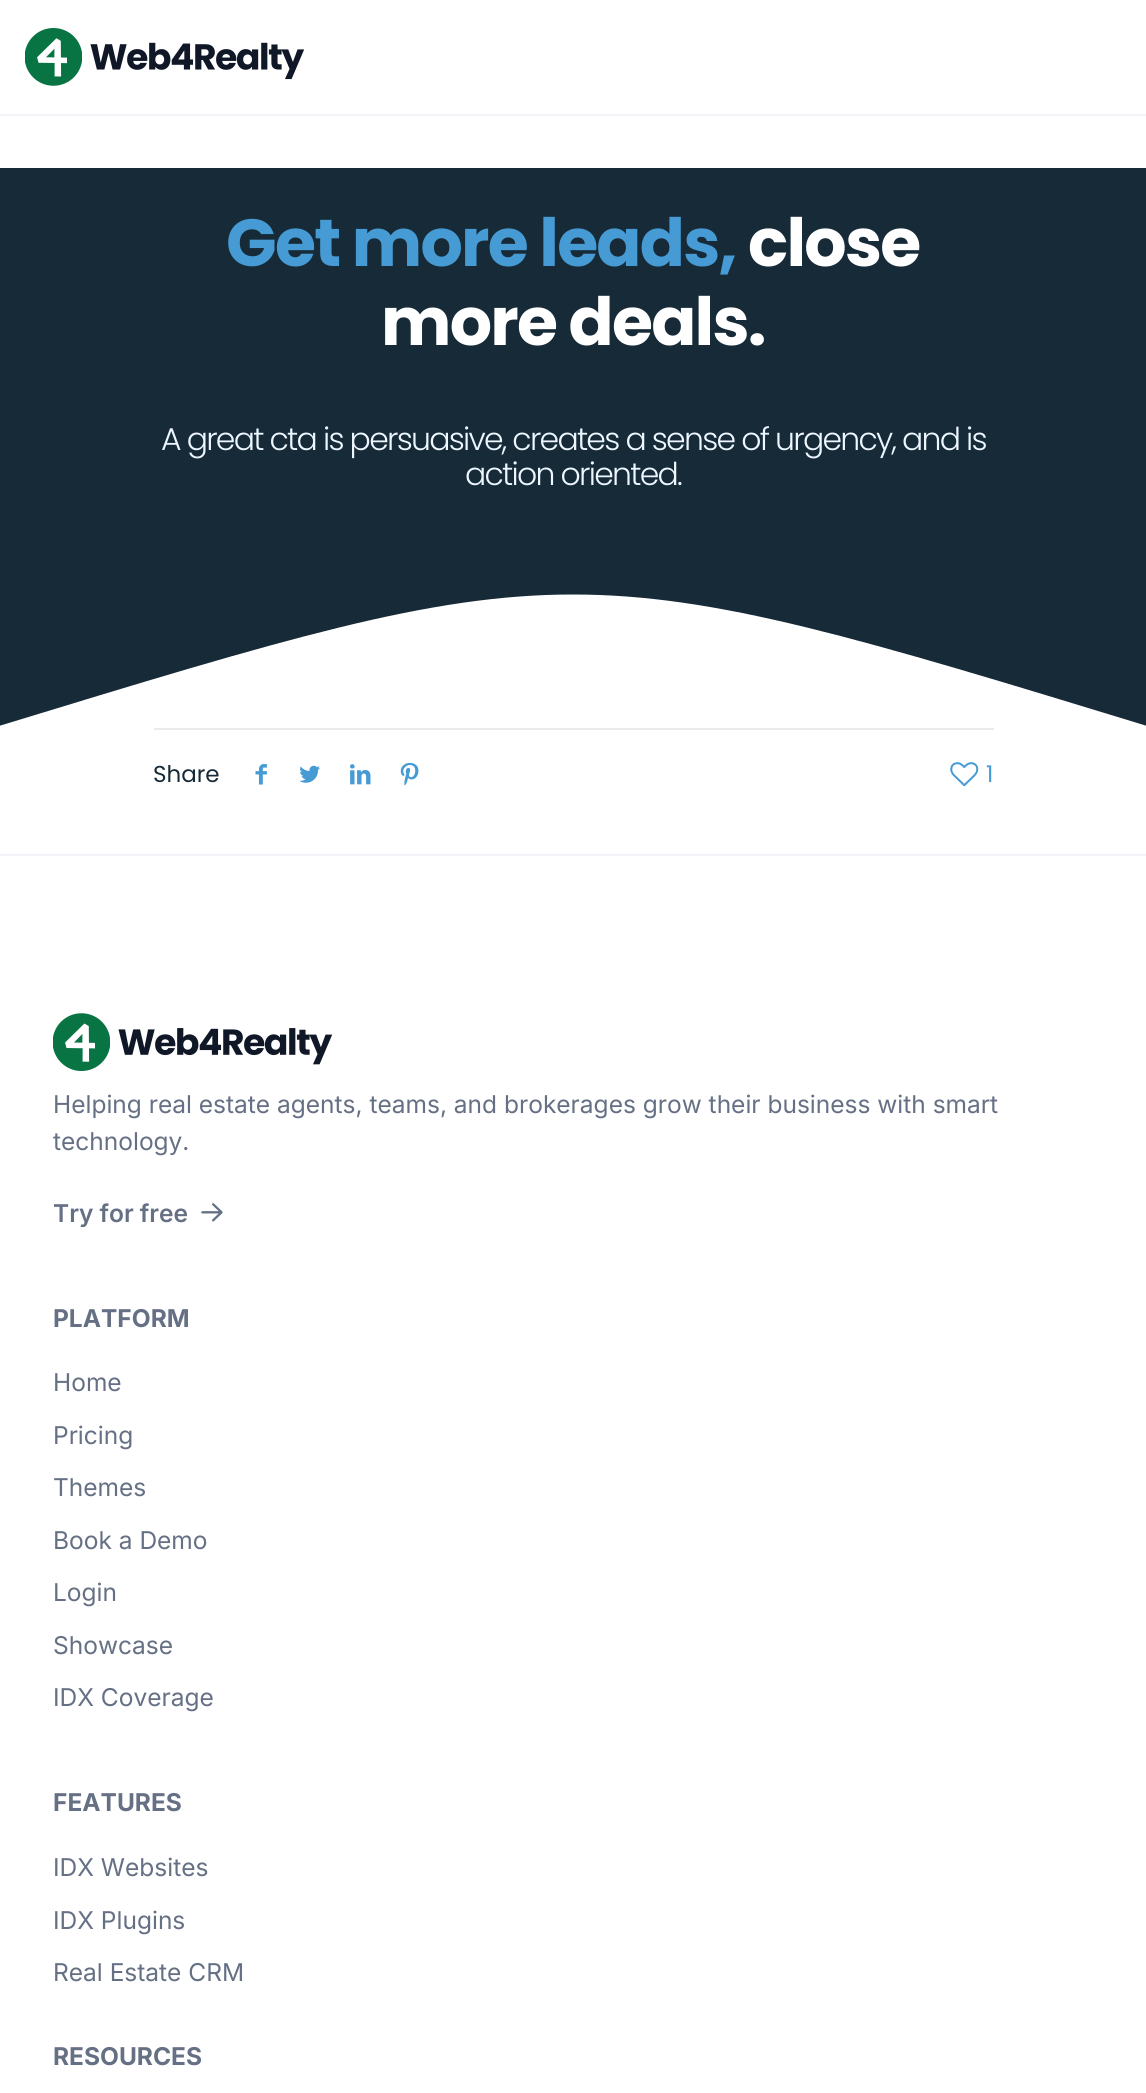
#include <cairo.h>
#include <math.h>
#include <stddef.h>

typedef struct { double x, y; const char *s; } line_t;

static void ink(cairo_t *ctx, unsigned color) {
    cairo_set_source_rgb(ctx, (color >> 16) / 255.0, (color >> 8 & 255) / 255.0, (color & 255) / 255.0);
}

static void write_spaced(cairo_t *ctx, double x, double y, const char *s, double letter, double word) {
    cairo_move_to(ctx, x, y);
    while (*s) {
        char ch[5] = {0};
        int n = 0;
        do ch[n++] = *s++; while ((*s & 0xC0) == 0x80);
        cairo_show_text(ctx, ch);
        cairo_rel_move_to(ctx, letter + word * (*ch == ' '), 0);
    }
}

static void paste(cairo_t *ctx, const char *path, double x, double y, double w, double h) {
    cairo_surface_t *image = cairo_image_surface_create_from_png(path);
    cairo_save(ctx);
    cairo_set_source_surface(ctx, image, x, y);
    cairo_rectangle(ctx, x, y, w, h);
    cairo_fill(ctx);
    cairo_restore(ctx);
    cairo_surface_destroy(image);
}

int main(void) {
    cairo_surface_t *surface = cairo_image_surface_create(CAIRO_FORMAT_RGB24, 1146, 2093);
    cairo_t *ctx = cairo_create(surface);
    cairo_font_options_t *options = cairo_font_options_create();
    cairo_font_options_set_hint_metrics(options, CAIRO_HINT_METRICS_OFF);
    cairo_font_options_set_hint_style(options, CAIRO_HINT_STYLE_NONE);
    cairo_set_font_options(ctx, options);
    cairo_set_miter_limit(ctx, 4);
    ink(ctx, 0xFFFFFF);
    cairo_paint(ctx);
    ink(ctx, 0xF2F4F7);
    cairo_rectangle(ctx, 0, 114, 1146, 2);
    cairo_fill(ctx);
    paste(ctx, "media/1.png", 25, 28, 280, 58);
    ink(ctx, 0x172A38);
    cairo_rectangle(ctx, 0, 168, 1146, 558);
    cairo_fill(ctx);
    cairo_select_font_face(ctx, "Poppins", CAIRO_FONT_SLANT_NORMAL, CAIRO_FONT_WEIGHT_BOLD);
    cairo_set_font_size(ctx, 66.5);
    ink(ctx, 0x469BD4);
    write_spaced(ctx, 226, 266, "Get more leads,", -1.75, 0);
    ink(ctx, 0xFFFFFF);
    write_spaced(ctx, 748, 266, "close", -1.75, 0);
    write_spaced(ctx, 381, 345, "more deals.", -1.75, 0);
    cairo_select_font_face(ctx, "Poppins Light", CAIRO_FONT_SLANT_NORMAL, CAIRO_FONT_WEIGHT_NORMAL);
    cairo_set_font_size(ctx, 31.5);
    ink(ctx, 0xEDF7FF);
    write_spaced(ctx, 161, 450, "A great cta is persuasive, creates a sense of urgency, and is", -1.75, 0);
    write_spaced(ctx, 465, 485, "action oriented.", -1.75, 0);
    ink(ctx, 0xFFFFFF);
    cairo_new_path(ctx);
    cairo_move_to(ctx, 0, 728);
    cairo_curve_to(ctx, 573, 553, 573, 553, 1146, 728);
    cairo_close_path(ctx);
    cairo_fill(ctx);
    cairo_save(ctx);
    cairo_rectangle(ctx, 0, 553, 1146, 175);
    cairo_clip(ctx);
    cairo_new_path(ctx);
    cairo_move_to(ctx, 0, 728);
    cairo_curve_to(ctx, 573, 553, 573, 553, 1146, 728);
    cairo_close_path(ctx);
    cairo_set_line_width(ctx, 4.5);
    cairo_stroke(ctx);
    cairo_restore(ctx);
    ink(ctx, 0xEBEBEB);
    cairo_rectangle(ctx, 154, 728, 840, 2);
    cairo_fill(ctx);
    cairo_select_font_face(ctx, "Poppins", CAIRO_FONT_SLANT_NORMAL, CAIRO_FONT_WEIGHT_NORMAL);
    cairo_set_font_size(ctx, 23);
    ink(ctx, 0x172A38);
    cairo_move_to(ctx, 153, 782);
    cairo_show_text(ctx, "Share");
    paste(ctx, "media/2.png", 255, 764, 12, 21);
    paste(ctx, "media/3.png", 299, 765, 21, 18);
    paste(ctx, "media/4.png", 350, 764, 21, 21);
    paste(ctx, "media/5.png", 400, 762, 19, 24);
    paste(ctx, "media/6.png", 950, 762, 29, 25);
    ink(ctx, 0x469BD4);
    cairo_move_to(ctx, 986, 782);
    cairo_show_text(ctx, "1");
    ink(ctx, 0xF2F4F7);
    cairo_rectangle(ctx, 0, 854, 1146, 2);
    cairo_fill(ctx);
    paste(ctx, "media/7.png", 53, 1013, 280, 58);
    cairo_select_font_face(ctx, "Inter", CAIRO_FONT_SLANT_NORMAL, CAIRO_FONT_WEIGHT_NORMAL);
    cairo_set_font_size(ctx, 24.5);
    ink(ctx, 0x667085);
    cairo_move_to(ctx, 53, 1113);
    cairo_show_text(ctx, "Helping real estate agents, teams, and brokerages grow their business with smart");
    cairo_move_to(ctx, 53, 1150);
    cairo_show_text(ctx, "technology.");
    cairo_select_font_face(ctx, "Inter SemiBold", CAIRO_FONT_SLANT_NORMAL, CAIRO_FONT_WEIGHT_NORMAL);
    cairo_move_to(ctx, 53, 1222);
    cairo_show_text(ctx, "Try for free");
    paste(ctx, "media/8.png", 201, 1203, 22, 19);
    cairo_select_font_face(ctx, "Inter", CAIRO_FONT_SLANT_NORMAL, CAIRO_FONT_WEIGHT_BOLD);
    cairo_move_to(ctx, 53, 1327);
    cairo_show_text(ctx, "PLATFORM");
    cairo_select_font_face(ctx, "Inter", CAIRO_FONT_SLANT_NORMAL, CAIRO_FONT_WEIGHT_NORMAL);
    {
        static const line_t items[] = {
            {53, 1391, "Home"},
            {53, 1444, "Pricing"},
            {53, 1496, "Themes"},
            {53, 1549, "Book a Demo"},
            {53, 1601, "Login"},
            {53, 1654, "Showcase"},
            {53, 1706, "IDX Coverage"},
        };
        for (size_t i = 0; i < sizeof items / sizeof *items; i++) {
            cairo_move_to(ctx, items[i].x, items[i].y);
            cairo_show_text(ctx, items[i].s);
        }
    }
    cairo_select_font_face(ctx, "Inter", CAIRO_FONT_SLANT_NORMAL, CAIRO_FONT_WEIGHT_BOLD);
    cairo_move_to(ctx, 53, 1811);
    cairo_show_text(ctx, "FEATURES");
    cairo_select_font_face(ctx, "Inter", CAIRO_FONT_SLANT_NORMAL, CAIRO_FONT_WEIGHT_NORMAL);
    {
        static const line_t items[] = {
            {53, 1876, "IDX Websites"},
            {53, 1929, "IDX Plugins"},
            {53, 1981, "Real Estate CRM"},
        };
        for (size_t i = 0; i < sizeof items / sizeof *items; i++) {
            cairo_move_to(ctx, items[i].x, items[i].y);
            cairo_show_text(ctx, items[i].s);
        }
    }
    cairo_select_font_face(ctx, "Inter", CAIRO_FONT_SLANT_NORMAL, CAIRO_FONT_WEIGHT_BOLD);
    cairo_move_to(ctx, 53, 2065);
    cairo_show_text(ctx, "RESOURCES");
    cairo_surface_write_to_png(surface, "image.png");
    cairo_font_options_destroy(options);
    cairo_destroy(ctx);
    cairo_surface_destroy(surface);
    return 0;
}
